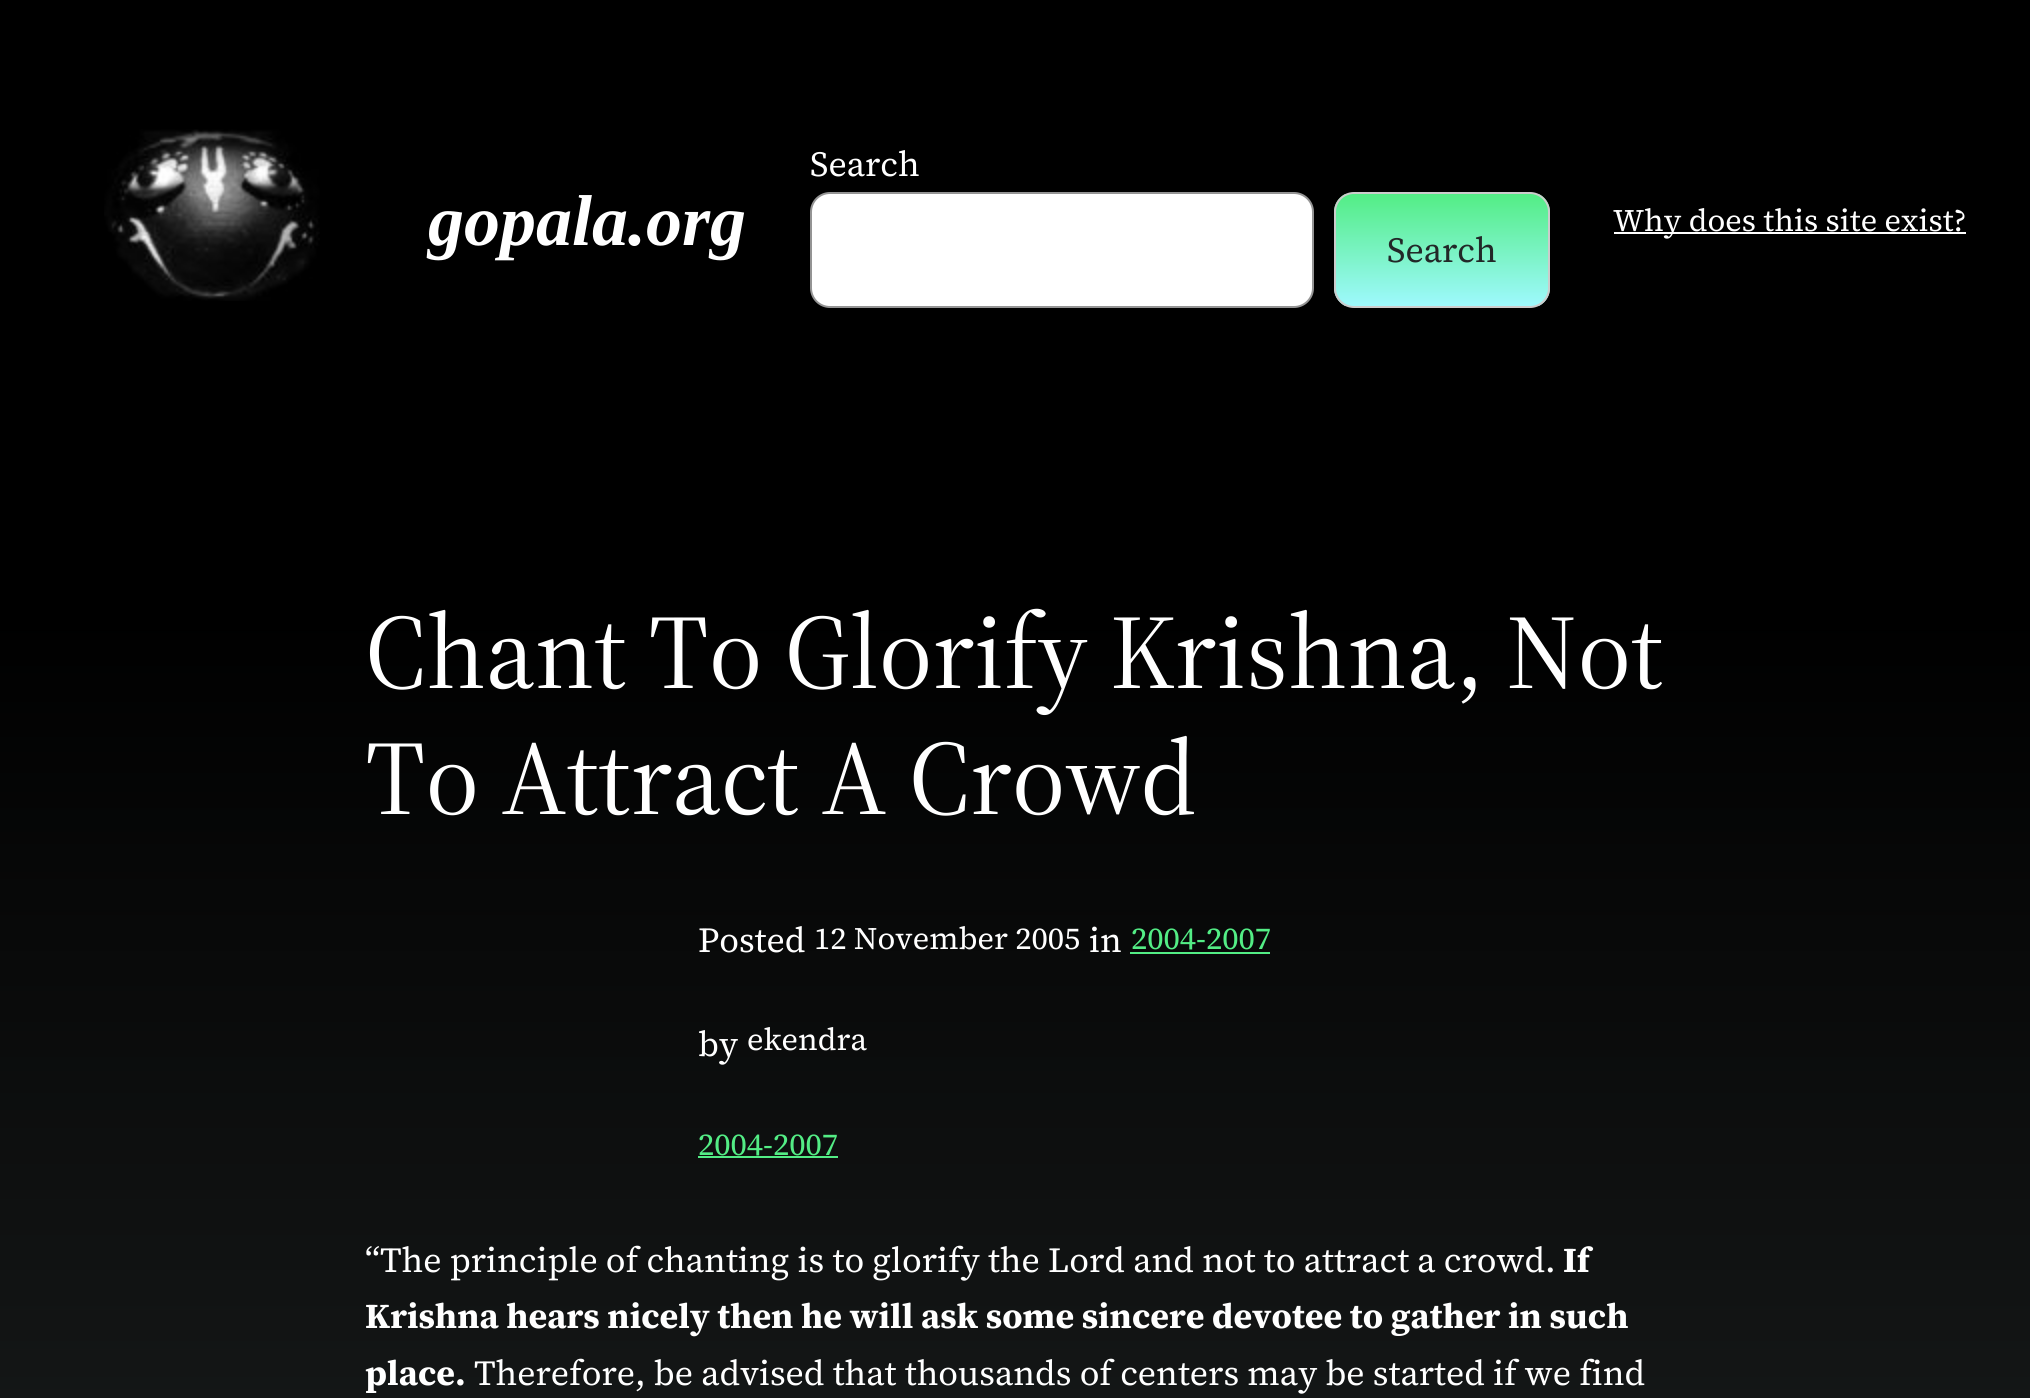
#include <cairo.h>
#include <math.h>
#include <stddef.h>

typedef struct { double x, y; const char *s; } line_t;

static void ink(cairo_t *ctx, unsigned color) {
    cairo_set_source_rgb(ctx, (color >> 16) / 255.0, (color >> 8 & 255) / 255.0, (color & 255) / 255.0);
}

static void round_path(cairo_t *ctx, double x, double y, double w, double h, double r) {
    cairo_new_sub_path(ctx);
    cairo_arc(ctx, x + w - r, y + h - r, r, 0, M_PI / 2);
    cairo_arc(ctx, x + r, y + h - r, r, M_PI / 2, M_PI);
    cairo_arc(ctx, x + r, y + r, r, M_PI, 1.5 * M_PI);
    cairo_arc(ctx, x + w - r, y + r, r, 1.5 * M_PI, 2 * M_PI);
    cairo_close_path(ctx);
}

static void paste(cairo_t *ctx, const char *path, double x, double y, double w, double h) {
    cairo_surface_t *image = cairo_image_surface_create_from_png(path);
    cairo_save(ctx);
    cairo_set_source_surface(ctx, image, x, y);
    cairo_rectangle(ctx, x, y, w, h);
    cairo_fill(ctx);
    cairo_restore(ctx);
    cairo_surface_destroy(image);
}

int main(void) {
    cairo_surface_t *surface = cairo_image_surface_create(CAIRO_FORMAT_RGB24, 2030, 1398);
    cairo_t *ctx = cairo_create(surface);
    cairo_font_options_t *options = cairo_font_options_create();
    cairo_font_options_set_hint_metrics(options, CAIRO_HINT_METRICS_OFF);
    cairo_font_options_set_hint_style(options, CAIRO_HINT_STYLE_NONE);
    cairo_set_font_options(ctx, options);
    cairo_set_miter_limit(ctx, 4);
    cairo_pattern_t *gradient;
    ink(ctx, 0xFFFFFF);
    cairo_paint(ctx);
    gradient = cairo_pattern_create_linear(1015, 0, 1015, 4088);
    cairo_pattern_add_color_stop_rgba(gradient, 0, 0, 0, 0, 1);
    cairo_pattern_add_color_stop_rgba(gradient, 0.15, 0, 0, 0, 1);
    cairo_pattern_add_color_stop_rgba(gradient, 0.48, 0.133, 0.149, 0.149, 1);
    cairo_pattern_add_color_stop_rgba(gradient, 1, 0.329, 0.149, 0.498, 1);
    cairo_set_source(ctx, gradient);
    cairo_pattern_destroy(gradient);
    cairo_rectangle(ctx, 0, 0, 2030, 1398);
    cairo_fill(ctx);
    paste(ctx, "media/1.png", 104, 129, 216, 172);
    cairo_select_font_face(ctx, "Liberation Serif", CAIRO_FONT_SLANT_ITALIC, CAIRO_FONT_WEIGHT_BOLD);
    cairo_set_font_size(ctx, 72);
    ink(ctx, 0xFFFFFF);
    cairo_move_to(ctx, 428, 245);
    cairo_show_text(ctx, "gopala.org");
    cairo_select_font_face(ctx, "Source Serif 4", CAIRO_FONT_SLANT_NORMAL, CAIRO_FONT_WEIGHT_NORMAL);
    cairo_set_font_size(ctx, 35.15);
    cairo_move_to(ctx, 810, 176);
    cairo_show_text(ctx, "Search");
    round_path(ctx, 811, 193, 502, 114, 19);
    cairo_fill_preserve(ctx);
    ink(ctx, 0x949494);
    cairo_stroke(ctx);
    cairo_save(ctx);
    round_path(ctx, 1334, 192, 216, 116, 20);
    cairo_clip(ctx);
    gradient = cairo_pattern_create_linear(1442, 194, 1442, 306);
    cairo_pattern_add_color_stop_rgba(gradient, 0, 0.325, 0.929, 0.522, 1);
    cairo_pattern_add_color_stop_rgba(gradient, 1, 0.62, 0.976, 0.992, 1);
    cairo_set_source(ctx, gradient);
    cairo_pattern_destroy(gradient);
    cairo_rectangle(ctx, 1334, 194, 216, 112);
    cairo_fill(ctx);
    cairo_restore(ctx);
    round_path(ctx, 1335, 193, 214, 114, 19);
    ink(ctx, 0xCCCCCC);
    cairo_stroke(ctx);
    ink(ctx, 0x222828);
    cairo_move_to(ctx, 1387, 262);
    cairo_show_text(ctx, "Search");
    ink(ctx, 0xFFFFFF);
    cairo_rectangle(ctx, 1614, 232, 352, 2);
    cairo_fill(ctx);
    cairo_select_font_face(ctx, "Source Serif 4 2", CAIRO_FONT_SLANT_NORMAL, CAIRO_FONT_WEIGHT_NORMAL);
    cairo_set_font_size(ctx, 31.2);
    cairo_move_to(ctx, 1613, 231);
    cairo_show_text(ctx, "Why does this site exist?");
    cairo_select_font_face(ctx, "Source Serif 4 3", CAIRO_FONT_SLANT_NORMAL, CAIRO_FONT_WEIGHT_NORMAL);
    cairo_set_font_size(ctx, 105.25);
    cairo_move_to(ctx, 365, 688);
    cairo_show_text(ctx, "Chant To Glorify Krishna, Not");
    cairo_move_to(ctx, 365, 814);
    cairo_show_text(ctx, "To Attract A Crowd");
    cairo_select_font_face(ctx, "Source Serif 4", CAIRO_FONT_SLANT_NORMAL, CAIRO_FONT_WEIGHT_NORMAL);
    cairo_set_font_size(ctx, 35.15);
    cairo_move_to(ctx, 698, 952);
    cairo_show_text(ctx, "Posted");
    cairo_select_font_face(ctx, "Source Serif 4 2", CAIRO_FONT_SLANT_NORMAL, CAIRO_FONT_WEIGHT_NORMAL);
    cairo_set_font_size(ctx, 31.2);
    cairo_move_to(ctx, 814, 949);
    cairo_show_text(ctx, "12 November 2005");
    cairo_select_font_face(ctx, "Source Serif 4", CAIRO_FONT_SLANT_NORMAL, CAIRO_FONT_WEIGHT_NORMAL);
    cairo_set_font_size(ctx, 35.15);
    cairo_move_to(ctx, 1089, 952);
    cairo_show_text(ctx, "in");
    cairo_select_font_face(ctx, "Source Serif 4 2", CAIRO_FONT_SLANT_NORMAL, CAIRO_FONT_WEIGHT_NORMAL);
    cairo_set_font_size(ctx, 31.2);
    ink(ctx, 0x53ED85);
    cairo_move_to(ctx, 1131, 949);
    cairo_show_text(ctx, "2004-2007");
    cairo_rectangle(ctx, 1130, 952, 140, 2);
    cairo_fill(ctx);
    cairo_select_font_face(ctx, "Source Serif 4", CAIRO_FONT_SLANT_NORMAL, CAIRO_FONT_WEIGHT_NORMAL);
    cairo_set_font_size(ctx, 35.15);
    ink(ctx, 0xFFFFFF);
    cairo_move_to(ctx, 698, 1056);
    cairo_show_text(ctx, "by");
    cairo_select_font_face(ctx, "Source Serif 4 2", CAIRO_FONT_SLANT_NORMAL, CAIRO_FONT_WEIGHT_NORMAL);
    cairo_set_font_size(ctx, 31.2);
    cairo_move_to(ctx, 747, 1050);
    cairo_show_text(ctx, "ekendra");
    ink(ctx, 0x53ED85);
    cairo_move_to(ctx, 698, 1155);
    cairo_show_text(ctx, "2004-2007");
    cairo_rectangle(ctx, 698, 1156, 140, 2);
    cairo_fill(ctx);
    cairo_select_font_face(ctx, "Source Serif 4", CAIRO_FONT_SLANT_NORMAL, CAIRO_FONT_WEIGHT_NORMAL);
    cairo_set_font_size(ctx, 35.15);
    ink(ctx, 0xFFFFFF);
    cairo_move_to(ctx, 365, 1272);
    cairo_show_text(ctx, "“The principle of chanting is to glorify the Lord and not to attract a crowd.");
    cairo_select_font_face(ctx, "Source Serif 4", CAIRO_FONT_SLANT_NORMAL, CAIRO_FONT_WEIGHT_BOLD);
    {
        static const line_t items[] = {
            {1563, 1272, "If"},
            {365, 1328, "Krishna hears nicely then he will ask some sincere devotee to gather in such"},
            {365, 1385, "place."},
        };
        for (size_t i = 0; i < sizeof items / sizeof *items; i++) {
            cairo_move_to(ctx, items[i].x, items[i].y);
            cairo_show_text(ctx, items[i].s);
        }
    }
    cairo_select_font_face(ctx, "Source Serif 4", CAIRO_FONT_SLANT_NORMAL, CAIRO_FONT_WEIGHT_NORMAL);
    cairo_move_to(ctx, 474, 1385);
    cairo_show_text(ctx, "Therefore, be advised that thousands of centers may be started if we find");
    cairo_surface_write_to_png(surface, "image.png");
    cairo_font_options_destroy(options);
    cairo_destroy(ctx);
    cairo_surface_destroy(surface);
    return 0;
}
